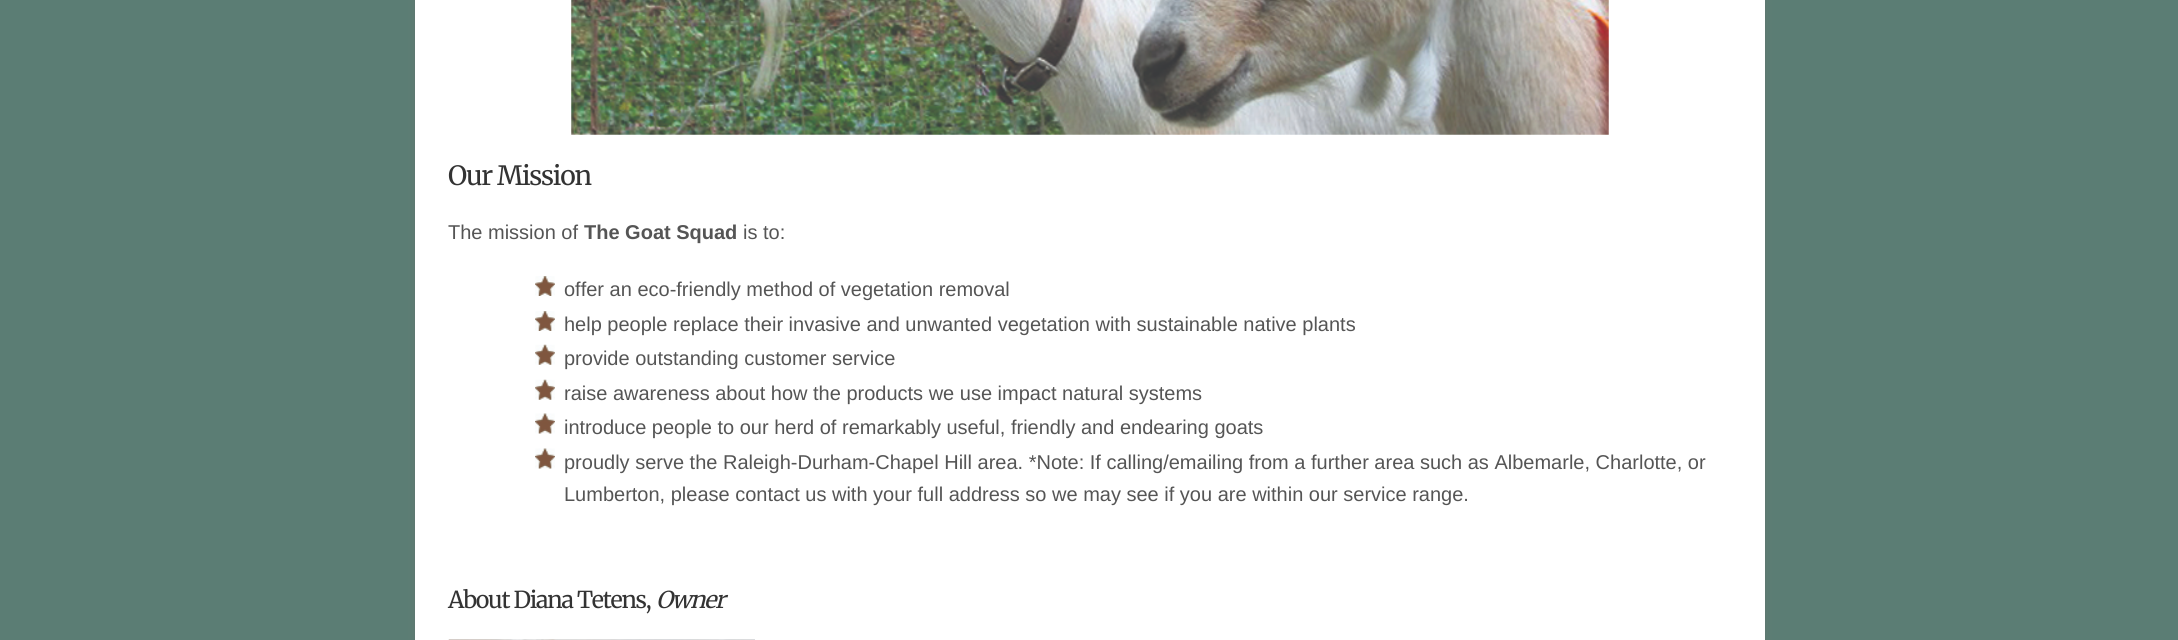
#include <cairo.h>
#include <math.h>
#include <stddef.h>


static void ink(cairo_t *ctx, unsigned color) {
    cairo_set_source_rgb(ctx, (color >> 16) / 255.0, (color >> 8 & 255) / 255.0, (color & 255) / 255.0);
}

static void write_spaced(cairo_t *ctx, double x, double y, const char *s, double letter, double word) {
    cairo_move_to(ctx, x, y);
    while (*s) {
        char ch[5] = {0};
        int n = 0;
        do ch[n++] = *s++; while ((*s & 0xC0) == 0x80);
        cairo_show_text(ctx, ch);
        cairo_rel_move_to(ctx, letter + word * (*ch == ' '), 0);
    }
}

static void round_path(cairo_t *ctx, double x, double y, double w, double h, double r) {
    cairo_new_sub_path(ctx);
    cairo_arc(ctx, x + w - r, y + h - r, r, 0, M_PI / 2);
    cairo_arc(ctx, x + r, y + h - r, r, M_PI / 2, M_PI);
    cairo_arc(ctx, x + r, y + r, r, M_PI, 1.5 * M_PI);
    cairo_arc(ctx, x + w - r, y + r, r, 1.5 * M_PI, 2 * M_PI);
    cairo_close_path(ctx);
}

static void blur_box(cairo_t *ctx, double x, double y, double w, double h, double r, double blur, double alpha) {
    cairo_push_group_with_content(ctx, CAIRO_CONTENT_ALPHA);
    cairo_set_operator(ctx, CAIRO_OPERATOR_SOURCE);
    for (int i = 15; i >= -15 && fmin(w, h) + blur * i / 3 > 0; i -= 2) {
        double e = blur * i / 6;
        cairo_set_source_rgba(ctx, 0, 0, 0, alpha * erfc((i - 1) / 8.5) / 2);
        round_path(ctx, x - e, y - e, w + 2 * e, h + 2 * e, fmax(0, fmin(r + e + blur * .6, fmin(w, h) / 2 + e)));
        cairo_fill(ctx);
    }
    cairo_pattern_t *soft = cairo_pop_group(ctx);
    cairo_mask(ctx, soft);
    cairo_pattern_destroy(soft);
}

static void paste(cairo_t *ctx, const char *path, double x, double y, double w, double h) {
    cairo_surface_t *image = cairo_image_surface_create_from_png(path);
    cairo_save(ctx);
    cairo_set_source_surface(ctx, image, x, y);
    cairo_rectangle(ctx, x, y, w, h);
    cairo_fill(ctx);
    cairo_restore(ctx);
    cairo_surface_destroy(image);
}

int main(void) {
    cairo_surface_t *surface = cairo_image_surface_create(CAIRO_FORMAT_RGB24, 2178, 640);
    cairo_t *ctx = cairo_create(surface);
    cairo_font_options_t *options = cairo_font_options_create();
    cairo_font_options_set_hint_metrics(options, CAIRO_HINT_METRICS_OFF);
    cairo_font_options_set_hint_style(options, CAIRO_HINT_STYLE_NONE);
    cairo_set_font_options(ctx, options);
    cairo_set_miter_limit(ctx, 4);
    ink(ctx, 0x5B7D74);
    cairo_paint(ctx);
    ink(ctx, 0x646464);
    blur_box(ctx, 415, -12, 1350, 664, 0, 4, 0.4);
    ink(ctx, 0xFFFFFF);
    cairo_rectangle(ctx, 415, 0, 1350, 640);
    cairo_fill(ctx);
    paste(ctx, "media/1.png", 571, 0, 1038, 135);
    cairo_select_font_face(ctx, "Merriweather", CAIRO_FONT_SLANT_NORMAL, CAIRO_FONT_WEIGHT_NORMAL);
    cairo_set_font_size(ctx, 26.5);
    ink(ctx, 0x333333);
    write_spaced(ctx, 448, 185, "Our Mission", -1.25, 0);
    cairo_select_font_face(ctx, "Liberation Sans", CAIRO_FONT_SLANT_NORMAL, CAIRO_FONT_WEIGHT_NORMAL);
    cairo_set_font_size(ctx, 20);
    ink(ctx, 0x555555);
    cairo_move_to(ctx, 448, 239);
    cairo_show_text(ctx, "The mission of");
    cairo_select_font_face(ctx, "Liberation Sans", CAIRO_FONT_SLANT_NORMAL, CAIRO_FONT_WEIGHT_BOLD);
    cairo_move_to(ctx, 584, 239);
    cairo_show_text(ctx, "The Goat Squad");
    cairo_select_font_face(ctx, "Liberation Sans", CAIRO_FONT_SLANT_NORMAL, CAIRO_FONT_WEIGHT_NORMAL);
    cairo_move_to(ctx, 743, 239);
    cairo_show_text(ctx, "is to:");
    paste(ctx, "media/2.png", 535, 276, 20, 20);
    cairo_move_to(ctx, 564, 296);
    cairo_show_text(ctx, "offer an eco-friendly method of vegetation removal");
    paste(ctx, "media/2.png", 535, 311, 20, 20);
    cairo_move_to(ctx, 564, 331);
    cairo_show_text(ctx, "help people replace their invasive and unwanted vegetation with sustainable native plants");
    paste(ctx, "media/3.png", 535, 344, 20, 21);
    cairo_move_to(ctx, 564, 365);
    cairo_show_text(ctx, "provide outstanding customer service");
    paste(ctx, "media/3.png", 535, 379, 20, 21);
    cairo_move_to(ctx, 564, 400);
    cairo_show_text(ctx, "raise awareness about how the products we use impact natural systems");
    paste(ctx, "media/4.png", 535, 413, 20, 21);
    cairo_move_to(ctx, 564, 434);
    cairo_show_text(ctx, "introduce people to our herd of remarkably useful, friendly and endearing goats");
    paste(ctx, "media/5.png", 535, 448, 20, 21);
    cairo_move_to(ctx, 564, 469);
    cairo_show_text(ctx, "proudly serve the Raleigh-Durham-Chapel Hill area. *Note: If calling/emailing from a further area such as Albemarle, Charlotte, or");
    cairo_move_to(ctx, 564, 501);
    cairo_show_text(ctx, "Lumberton, please contact us with your full address so we may see if you are within our service range.");
    cairo_select_font_face(ctx, "Merriweather", CAIRO_FONT_SLANT_NORMAL, CAIRO_FONT_WEIGHT_NORMAL);
    cairo_set_font_size(ctx, 23.25);
    ink(ctx, 0x333333);
    write_spaced(ctx, 448, 608, "About Diana Tetens,", -1.25, 0);
    cairo_select_font_face(ctx, "Merriweather", CAIRO_FONT_SLANT_ITALIC, CAIRO_FONT_WEIGHT_NORMAL);
    write_spaced(ctx, 656, 608, "Owner", -1.25, 0);
    paste(ctx, "media/6.png", 448, 639, 307, 1);
    cairo_surface_write_to_png(surface, "image.png");
    cairo_font_options_destroy(options);
    cairo_destroy(ctx);
    cairo_surface_destroy(surface);
    return 0;
}
